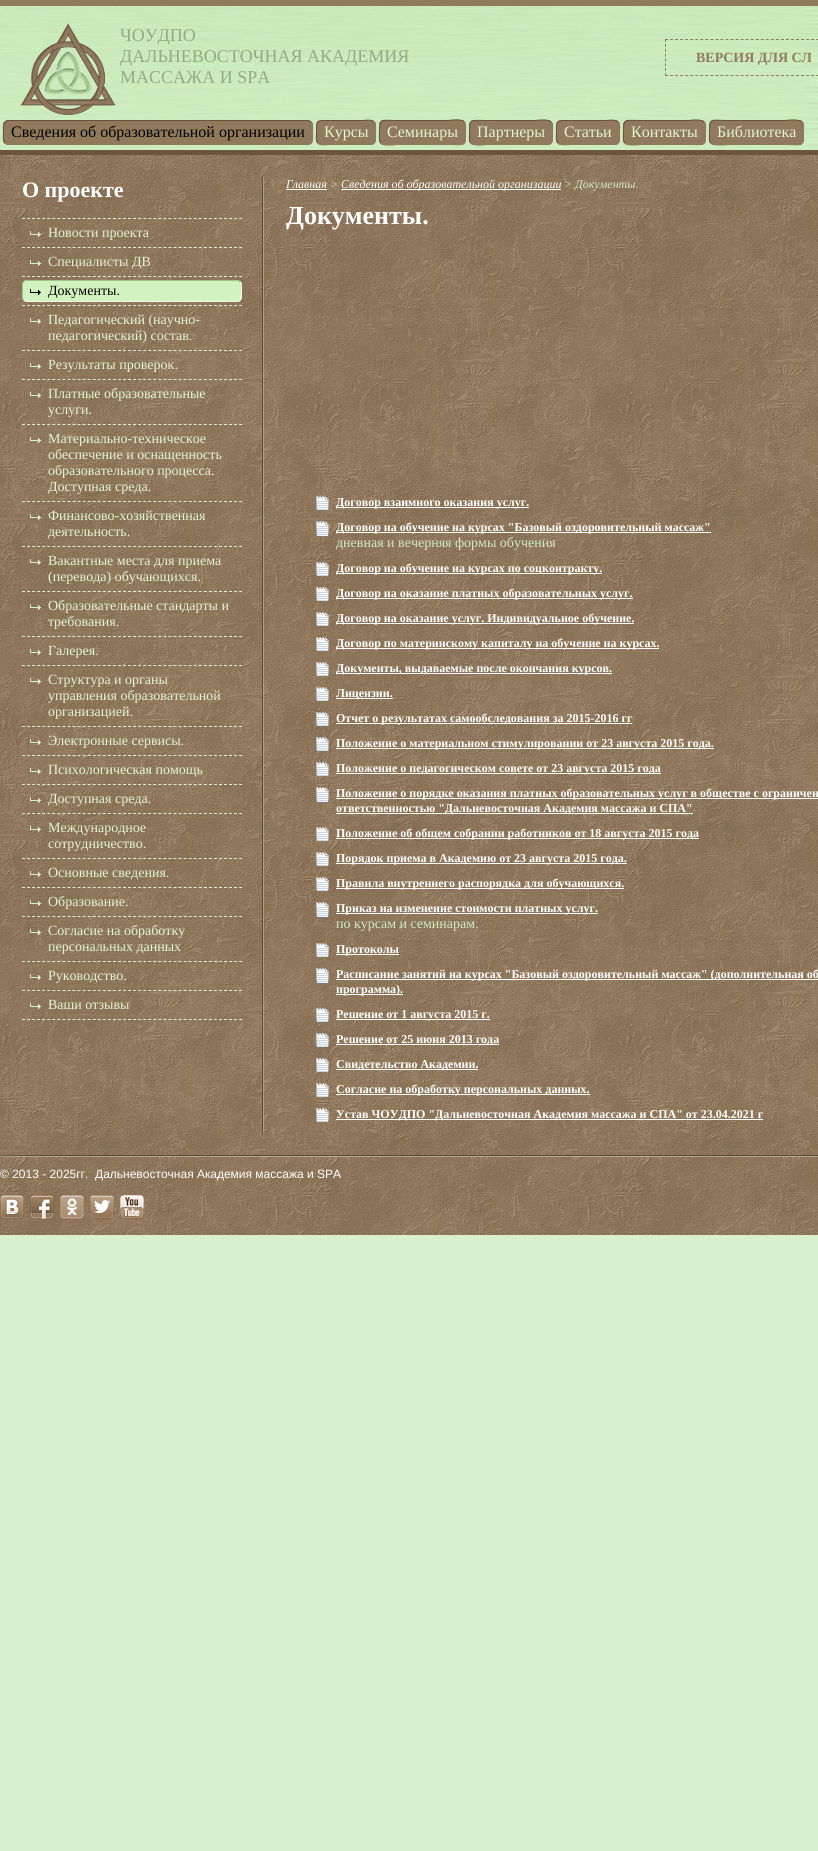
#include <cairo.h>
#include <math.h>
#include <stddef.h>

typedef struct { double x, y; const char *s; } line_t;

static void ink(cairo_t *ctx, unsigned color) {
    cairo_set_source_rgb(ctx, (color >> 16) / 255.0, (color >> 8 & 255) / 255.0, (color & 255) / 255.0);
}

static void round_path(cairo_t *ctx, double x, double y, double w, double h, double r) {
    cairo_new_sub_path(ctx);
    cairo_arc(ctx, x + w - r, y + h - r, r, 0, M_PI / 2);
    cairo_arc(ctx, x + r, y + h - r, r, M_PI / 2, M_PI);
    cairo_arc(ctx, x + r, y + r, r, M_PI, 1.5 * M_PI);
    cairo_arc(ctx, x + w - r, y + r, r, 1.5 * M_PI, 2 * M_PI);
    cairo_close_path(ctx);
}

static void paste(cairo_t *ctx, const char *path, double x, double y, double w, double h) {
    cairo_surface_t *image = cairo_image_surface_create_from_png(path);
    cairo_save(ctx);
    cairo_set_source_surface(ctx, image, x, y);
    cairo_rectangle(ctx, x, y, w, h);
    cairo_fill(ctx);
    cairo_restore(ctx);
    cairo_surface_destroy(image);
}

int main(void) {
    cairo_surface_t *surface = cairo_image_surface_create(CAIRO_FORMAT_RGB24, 818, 1851);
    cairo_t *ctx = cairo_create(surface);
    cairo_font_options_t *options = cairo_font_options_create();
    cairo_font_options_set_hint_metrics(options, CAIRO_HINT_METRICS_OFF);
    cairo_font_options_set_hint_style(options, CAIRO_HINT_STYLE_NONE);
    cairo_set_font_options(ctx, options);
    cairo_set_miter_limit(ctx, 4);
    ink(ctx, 0xDAEFCD);
    cairo_paint(ctx);
    paste(ctx, "media/1.png", 0, 0, 818, 150);
    paste(ctx, "media/2.png", 20, 23, 96, 92);
    cairo_select_font_face(ctx, "Liberation Serif", CAIRO_FONT_SLANT_NORMAL, CAIRO_FONT_WEIGHT_NORMAL);
    cairo_set_font_size(ctx, 18);
    ink(ctx, 0x92AB85);
    {
        static const line_t items[] = {
            {120, 41, "ЧОУДПО"},
            {120, 62, "ДАЛЬНЕВОСТОЧНАЯ АКАДЕМИЯ"},
            {120, 83, "МАССАЖА И SPA"},
        };
        for (size_t i = 0; i < sizeof items / sizeof *items; i++) {
            cairo_move_to(ctx, items[i].x, items[i].y);
            cairo_show_text(ctx, items[i].s);
        }
    }
    cairo_select_font_face(ctx, "Liberation Serif", CAIRO_FONT_SLANT_NORMAL, CAIRO_FONT_WEIGHT_BOLD);
    cairo_set_font_size(ctx, 14);
    ink(ctx, 0x907A5B);
    cairo_move_to(ctx, 696, 62);
    cairo_show_text(ctx, "ВЕРСИЯ ДЛЯ СЛ");
    cairo_new_path(ctx);
    cairo_move_to(ctx, 665, 39.5);
    cairo_line_to(ctx, 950, 39.5);
    cairo_set_line_width(ctx, 1);
    cairo_set_dash(ctx, (double[]){3, 2.04}, 2, 0);
    cairo_stroke(ctx);
    cairo_new_path(ctx);
    cairo_move_to(ctx, 665, 75.5);
    cairo_line_to(ctx, 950, 75.5);
    cairo_stroke(ctx);
    cairo_new_path(ctx);
    cairo_move_to(ctx, 665.5, 39);
    cairo_line_to(ctx, 665.5, 76);
    cairo_set_dash(ctx, (double[]){3, 1.86}, 2, 0);
    cairo_stroke(ctx);
    round_path(ctx, 3, 120, 310, 25, 5);
    cairo_fill(ctx);
    cairo_new_path(ctx);
    cairo_move_to(ctx, 311, 122);
    cairo_curve_to(ctx, 313.5, 124.5, 312.5, 129.5, 312.5, 132.5);
    cairo_curve_to(ctx, 312.5, 135.5, 313.5, 140.5, 311, 143);
    cairo_line_to(ctx, 308, 144.5);
    cairo_line_to(ctx, 8, 144.5);
    cairo_line_to(ctx, 5, 143);
    cairo_set_dash(ctx, NULL, 0, 0);
    cairo_stroke(ctx);
    cairo_new_path(ctx);
    cairo_move_to(ctx, 5, 143);
    cairo_curve_to(ctx, 2.5, 140.5, 3.5, 135.5, 3.5, 132.5);
    cairo_curve_to(ctx, 3.5, 129.5, 2.5, 124.5, 5, 122);
    cairo_line_to(ctx, 8, 120.5);
    cairo_line_to(ctx, 308, 120.5);
    cairo_line_to(ctx, 311, 122);
    ink(ctx, 0x685238);
    cairo_stroke(ctx);
    cairo_select_font_face(ctx, "Liberation Serif", CAIRO_FONT_SLANT_NORMAL, CAIRO_FONT_WEIGHT_NORMAL);
    cairo_set_font_size(ctx, 16);
    ink(ctx, 0x000000);
    cairo_move_to(ctx, 11, 137);
    cairo_show_text(ctx, "Cведения об образовательной организации");
    ink(ctx, 0x907A5B);
    round_path(ctx, 316, 120, 60, 25, 5);
    cairo_fill(ctx);
    cairo_new_path(ctx);
    cairo_move_to(ctx, 374, 122);
    cairo_curve_to(ctx, 376.5, 124.5, 375.5, 129.5, 375.5, 132.5);
    cairo_curve_to(ctx, 375.5, 145, 376, 144.5, 362.5, 144.5);
    cairo_line_to(ctx, 329.5, 144.5);
    cairo_curve_to(ctx, 327, 144.5, 320.5, 146, 318, 143);
    cairo_stroke(ctx);
    cairo_new_path(ctx);
    cairo_move_to(ctx, 318, 143);
    cairo_curve_to(ctx, 315.5, 140.5, 316.5, 135.5, 316.5, 132.5);
    cairo_curve_to(ctx, 316.5, 120, 316, 120.5, 329.5, 120.5);
    cairo_line_to(ctx, 362.5, 120.5);
    cairo_curve_to(ctx, 365, 120.5, 371.5, 119, 374, 122);
    ink(ctx, 0x685238);
    cairo_stroke(ctx);
    ink(ctx, 0xE0F6D3);
    cairo_move_to(ctx, 324, 137);
    cairo_show_text(ctx, "Курсы");
    ink(ctx, 0x907A5B);
    round_path(ctx, 379, 120, 87, 25, 5);
    cairo_fill(ctx);
    cairo_new_path(ctx);
    cairo_move_to(ctx, 464, 122);
    cairo_curve_to(ctx, 466.5, 124.5, 465.5, 129.5, 465.5, 132.5);
    cairo_curve_to(ctx, 465.5, 147.5, 465, 144.5, 448, 144.5);
    cairo_line_to(ctx, 397, 144.5);
    cairo_curve_to(ctx, 396.5, 144.5, 384.5, 146.5, 381, 143.5);
    cairo_line_to(ctx, 381, 143);
    cairo_stroke(ctx);
    cairo_new_path(ctx);
    cairo_move_to(ctx, 381, 143);
    cairo_curve_to(ctx, 378.5, 140.5, 379.5, 135.5, 379.5, 132.5);
    cairo_curve_to(ctx, 379.5, 117.5, 380, 120.5, 397, 120.5);
    cairo_line_to(ctx, 448, 120.5);
    cairo_curve_to(ctx, 448.5, 120.5, 460.5, 118.5, 464, 121.5);
    cairo_line_to(ctx, 464, 122);
    ink(ctx, 0x685238);
    cairo_stroke(ctx);
    ink(ctx, 0xE0F6D3);
    cairo_move_to(ctx, 387, 137);
    cairo_show_text(ctx, "Семинары");
    ink(ctx, 0x907A5B);
    round_path(ctx, 469, 120, 84, 25, 5);
    cairo_fill(ctx);
    cairo_new_path(ctx);
    cairo_move_to(ctx, 551, 122);
    cairo_curve_to(ctx, 553.5, 124.5, 552.5, 129.5, 552.5, 132.5);
    cairo_curve_to(ctx, 552.5, 147, 552, 144.5, 535.5, 144.5);
    cairo_line_to(ctx, 486.5, 144.5);
    cairo_curve_to(ctx, 486, 144.5, 474, 146.5, 471, 143);
    cairo_stroke(ctx);
    cairo_new_path(ctx);
    cairo_move_to(ctx, 471, 143);
    cairo_curve_to(ctx, 468.5, 140.5, 469.5, 135.5, 469.5, 132.5);
    cairo_curve_to(ctx, 469.5, 118, 470, 120.5, 486.5, 120.5);
    cairo_line_to(ctx, 535.5, 120.5);
    cairo_curve_to(ctx, 536, 120.5, 548, 118.5, 551, 122);
    ink(ctx, 0x685238);
    cairo_stroke(ctx);
    ink(ctx, 0xE0F6D3);
    cairo_move_to(ctx, 477, 137);
    cairo_show_text(ctx, "Партнеры");
    ink(ctx, 0x907A5B);
    round_path(ctx, 556, 120, 64, 25, 5);
    cairo_fill(ctx);
    cairo_new_path(ctx);
    cairo_move_to(ctx, 618, 122);
    cairo_curve_to(ctx, 620.5, 124.5, 619.5, 129.5, 619.5, 132.5);
    cairo_curve_to(ctx, 619.5, 145.5, 619.5, 144.5, 606, 144.5);
    cairo_line_to(ctx, 570, 144.5);
    cairo_curve_to(ctx, 568, 144.5, 560.5, 146, 558, 143);
    cairo_stroke(ctx);
    cairo_new_path(ctx);
    cairo_move_to(ctx, 558, 143);
    cairo_curve_to(ctx, 555.5, 140.5, 556.5, 135.5, 556.5, 132.5);
    cairo_curve_to(ctx, 556.5, 119.5, 556.5, 120.5, 570, 120.5);
    cairo_line_to(ctx, 606, 120.5);
    cairo_curve_to(ctx, 608, 120.5, 615.5, 119, 618, 122);
    ink(ctx, 0x685238);
    cairo_stroke(ctx);
    ink(ctx, 0xE0F6D3);
    cairo_move_to(ctx, 564, 137);
    cairo_show_text(ctx, "Статьи");
    ink(ctx, 0x907A5B);
    round_path(ctx, 623, 120, 83, 25, 5);
    cairo_fill(ctx);
    cairo_new_path(ctx);
    cairo_move_to(ctx, 704, 122);
    cairo_curve_to(ctx, 706.5, 124.5, 705.5, 129.5, 705.5, 132.5);
    cairo_curve_to(ctx, 705.5, 147, 705, 144.5, 689, 144.5);
    cairo_line_to(ctx, 640, 144.5);
    cairo_curve_to(ctx, 640, 144.5, 628, 146.5, 625, 143);
    cairo_stroke(ctx);
    cairo_new_path(ctx);
    cairo_move_to(ctx, 625, 143);
    cairo_curve_to(ctx, 622.5, 140.5, 623.5, 135.5, 623.5, 132.5);
    cairo_curve_to(ctx, 623.5, 118, 624, 120.5, 640, 120.5);
    cairo_line_to(ctx, 689, 120.5);
    cairo_curve_to(ctx, 689, 120.5, 701, 118.5, 704, 122);
    ink(ctx, 0x685238);
    cairo_stroke(ctx);
    ink(ctx, 0xE0F6D3);
    cairo_move_to(ctx, 631, 137);
    cairo_show_text(ctx, "Контакты");
    ink(ctx, 0x907A5B);
    round_path(ctx, 709, 120, 95, 25, 5);
    cairo_fill(ctx);
    cairo_new_path(ctx);
    cairo_move_to(ctx, 802, 122);
    cairo_curve_to(ctx, 804.5, 124.5, 803.5, 129.5, 803.5, 132.5);
    cairo_curve_to(ctx, 803.5, 148, 802.5, 144.5, 785, 144.5);
    cairo_line_to(ctx, 728, 144.5);
    cairo_curve_to(ctx, 727.5, 144.5, 714.5, 146.5, 711, 143);
    cairo_stroke(ctx);
    cairo_new_path(ctx);
    cairo_move_to(ctx, 711, 143);
    cairo_curve_to(ctx, 708.5, 140.5, 709.5, 135.5, 709.5, 132.5);
    cairo_curve_to(ctx, 709.5, 117, 710.5, 120.5, 728, 120.5);
    cairo_line_to(ctx, 785, 120.5);
    cairo_curve_to(ctx, 785.5, 120.5, 798.5, 118.5, 802, 122);
    ink(ctx, 0x685238);
    cairo_stroke(ctx);
    ink(ctx, 0xE0F6D3);
    cairo_move_to(ctx, 717, 137);
    cairo_show_text(ctx, "Библиотека");
    paste(ctx, "media/3.png", 0, 155, 818, 1000);
    ink(ctx, 0x6D553B);
    cairo_rectangle(ctx, 0, 150, 818, 5);
    cairo_fill(ctx);
    paste(ctx, "media/4.png", 262, 177, 2, 956);
    cairo_select_font_face(ctx, "Liberation Serif", CAIRO_FONT_SLANT_NORMAL, CAIRO_FONT_WEIGHT_BOLD);
    cairo_set_font_size(ctx, 22);
    ink(ctx, 0xFFFFFF);
    cairo_move_to(ctx, 22, 197);
    cairo_show_text(ctx, "О проекте");
    cairo_new_path(ctx);
    cairo_move_to(ctx, 22, 218.5);
    cairo_line_to(ctx, 242, 218.5);
    ink(ctx, 0xDAEFCD);
    cairo_set_dash(ctx, (double[]){3, 2.05}, 2, 0);
    cairo_stroke(ctx);
    cairo_new_path(ctx);
    cairo_move_to(ctx, 22, 247.5);
    cairo_line_to(ctx, 242, 247.5);
    cairo_stroke(ctx);
    paste(ctx, "media/5.png", 30, 231, 11, 6);
    cairo_rectangle(ctx, 22.5, 222.5, 219, 21);
    ink(ctx, 0x907A5B);
    cairo_set_dash(ctx, NULL, 0, 0);
    cairo_stroke(ctx);
    cairo_select_font_face(ctx, "Liberation Serif", CAIRO_FONT_SLANT_NORMAL, CAIRO_FONT_WEIGHT_NORMAL);
    cairo_set_font_size(ctx, 14);
    ink(ctx, 0xE0F6D3);
    cairo_move_to(ctx, 48, 237);
    cairo_show_text(ctx, "Новости проекта");
    cairo_new_path(ctx);
    cairo_move_to(ctx, 22, 276.5);
    cairo_line_to(ctx, 242, 276.5);
    ink(ctx, 0xDAEFCD);
    cairo_set_dash(ctx, (double[]){3, 2.05}, 2, 0);
    cairo_stroke(ctx);
    paste(ctx, "media/6.png", 30, 260, 11, 6);
    cairo_rectangle(ctx, 22.5, 251.5, 219, 21);
    ink(ctx, 0x907A5B);
    cairo_set_dash(ctx, NULL, 0, 0);
    cairo_stroke(ctx);
    ink(ctx, 0xE0F6D3);
    cairo_move_to(ctx, 48, 266);
    cairo_show_text(ctx, "Специалисты ДВ");
    cairo_new_path(ctx);
    cairo_move_to(ctx, 22, 305.5);
    cairo_line_to(ctx, 242, 305.5);
    ink(ctx, 0xDAEFCD);
    cairo_set_dash(ctx, (double[]){3, 2.05}, 2, 0);
    cairo_stroke(ctx);
    ink(ctx, 0xD2F3BF);
    round_path(ctx, 22, 280, 220, 22, 5);
    cairo_fill(ctx);
    paste(ctx, "media/7.png", 30, 289, 11, 6);
    cairo_save(ctx);
    cairo_rectangle(ctx, 22, 177, 220, 843);
    cairo_clip(ctx);
    cairo_new_path(ctx);
    cairo_move_to(ctx, 240, 282);
    cairo_curve_to(ctx, 242.5, 284, 241.5, 288, 241.5, 291);
    cairo_curve_to(ctx, 241.5, 294.5, 242.5, 301.5, 237, 301.5);
    cairo_line_to(ctx, 27, 301.5);
    cairo_line_to(ctx, 24, 300);
    ink(ctx, 0xF3FBEF);
    cairo_set_dash(ctx, NULL, 0, 0);
    cairo_stroke(ctx);
    cairo_new_path(ctx);
    cairo_move_to(ctx, 24, 300);
    cairo_curve_to(ctx, 21.5, 298, 22.5, 294, 22.5, 291);
    cairo_curve_to(ctx, 22.5, 287.5, 21.5, 280.5, 27, 280.5);
    cairo_line_to(ctx, 237, 280.5);
    cairo_line_to(ctx, 240, 282);
    ink(ctx, 0xA0C687);
    cairo_stroke(ctx);
    cairo_restore(ctx);
    ink(ctx, 0x000000);
    cairo_move_to(ctx, 48, 295);
    cairo_show_text(ctx, "Документы.");
    cairo_new_path(ctx);
    cairo_move_to(ctx, 22, 350.5);
    cairo_line_to(ctx, 242, 350.5);
    ink(ctx, 0xDAEFCD);
    cairo_stroke(ctx);
    paste(ctx, "media/8.png", 30, 318, 11, 6);
    cairo_rectangle(ctx, 22.5, 309.5, 219, 37);
    ink(ctx, 0x907A5B);
    cairo_set_dash(ctx, NULL, 0, 0);
    cairo_stroke(ctx);
    ink(ctx, 0xE0F6D3);
    cairo_move_to(ctx, 48, 324);
    cairo_show_text(ctx, "Педагогический (научно-");
    cairo_move_to(ctx, 48, 340);
    cairo_show_text(ctx, "педагогический) состав.");
    cairo_new_path(ctx);
    cairo_move_to(ctx, 22, 379.5);
    cairo_line_to(ctx, 242, 379.5);
    ink(ctx, 0xDAEFCD);
    cairo_set_dash(ctx, (double[]){3, 2.05}, 2, 0);
    cairo_stroke(ctx);
    paste(ctx, "media/9.png", 30, 363, 11, 6);
    cairo_rectangle(ctx, 22.5, 354.5, 219, 21);
    ink(ctx, 0x907A5B);
    cairo_set_dash(ctx, NULL, 0, 0);
    cairo_stroke(ctx);
    ink(ctx, 0xE0F6D3);
    cairo_move_to(ctx, 48, 369);
    cairo_show_text(ctx, "Результаты проверок.");
    cairo_new_path(ctx);
    cairo_move_to(ctx, 22, 424.5);
    cairo_line_to(ctx, 242, 424.5);
    ink(ctx, 0xDAEFCD);
    cairo_set_dash(ctx, (double[]){3, 2.05}, 2, 0);
    cairo_stroke(ctx);
    paste(ctx, "media/10.png", 30, 392, 11, 6);
    cairo_rectangle(ctx, 22.5, 383.5, 219, 37);
    ink(ctx, 0x907A5B);
    cairo_set_dash(ctx, NULL, 0, 0);
    cairo_stroke(ctx);
    ink(ctx, 0xE0F6D3);
    cairo_move_to(ctx, 48, 398);
    cairo_show_text(ctx, "Платные образовательные");
    cairo_move_to(ctx, 48, 414);
    cairo_show_text(ctx, "услуги.");
    cairo_new_path(ctx);
    cairo_move_to(ctx, 22, 501.5);
    cairo_line_to(ctx, 242, 501.5);
    ink(ctx, 0xDAEFCD);
    cairo_set_dash(ctx, (double[]){3, 2.05}, 2, 0);
    cairo_stroke(ctx);
    paste(ctx, "media/11.png", 30, 437, 11, 6);
    cairo_rectangle(ctx, 22.5, 428.5, 219, 69);
    ink(ctx, 0x907A5B);
    cairo_set_dash(ctx, NULL, 0, 0);
    cairo_stroke(ctx);
    ink(ctx, 0xE0F6D3);
    {
        static const line_t items[] = {
            {48, 443, "Материально-техническое"},
            {48, 459, "обеспечение и оснащенность"},
            {48, 475, "образовательного процесса."},
            {48, 491, "Доступная среда."},
        };
        for (size_t i = 0; i < sizeof items / sizeof *items; i++) {
            cairo_move_to(ctx, items[i].x, items[i].y);
            cairo_show_text(ctx, items[i].s);
        }
    }
    cairo_new_path(ctx);
    cairo_move_to(ctx, 22, 546.5);
    cairo_line_to(ctx, 242, 546.5);
    ink(ctx, 0xDAEFCD);
    cairo_set_dash(ctx, (double[]){3, 2.05}, 2, 0);
    cairo_stroke(ctx);
    paste(ctx, "media/12.png", 30, 514, 11, 6);
    cairo_rectangle(ctx, 22.5, 505.5, 219, 37);
    ink(ctx, 0x907A5B);
    cairo_set_dash(ctx, NULL, 0, 0);
    cairo_stroke(ctx);
    ink(ctx, 0xE0F6D3);
    cairo_move_to(ctx, 48, 520);
    cairo_show_text(ctx, "Финансово-хозяйственная");
    cairo_move_to(ctx, 48, 536);
    cairo_show_text(ctx, "деятельность.");
    cairo_new_path(ctx);
    cairo_move_to(ctx, 22, 591.5);
    cairo_line_to(ctx, 242, 591.5);
    ink(ctx, 0xDAEFCD);
    cairo_set_dash(ctx, (double[]){3, 2.05}, 2, 0);
    cairo_stroke(ctx);
    paste(ctx, "media/13.png", 30, 559, 11, 6);
    cairo_rectangle(ctx, 22.5, 550.5, 219, 37);
    ink(ctx, 0x907A5B);
    cairo_set_dash(ctx, NULL, 0, 0);
    cairo_stroke(ctx);
    ink(ctx, 0xE0F6D3);
    cairo_move_to(ctx, 48, 565);
    cairo_show_text(ctx, "Вакантные места для приема");
    cairo_move_to(ctx, 48, 581);
    cairo_show_text(ctx, "(перевода) обучающихся.");
    cairo_new_path(ctx);
    cairo_move_to(ctx, 22, 636.5);
    cairo_line_to(ctx, 242, 636.5);
    ink(ctx, 0xDAEFCD);
    cairo_set_dash(ctx, (double[]){3, 2.05}, 2, 0);
    cairo_stroke(ctx);
    paste(ctx, "media/14.png", 30, 604, 11, 6);
    cairo_rectangle(ctx, 22.5, 595.5, 219, 37);
    ink(ctx, 0x907A5B);
    cairo_set_dash(ctx, NULL, 0, 0);
    cairo_stroke(ctx);
    ink(ctx, 0xE0F6D3);
    cairo_move_to(ctx, 48, 610);
    cairo_show_text(ctx, "Образовательные стандарты и");
    cairo_move_to(ctx, 48, 626);
    cairo_show_text(ctx, "требования.");
    cairo_new_path(ctx);
    cairo_move_to(ctx, 22, 665.5);
    cairo_line_to(ctx, 242, 665.5);
    ink(ctx, 0xDAEFCD);
    cairo_set_dash(ctx, (double[]){3, 2.05}, 2, 0);
    cairo_stroke(ctx);
    paste(ctx, "media/15.png", 30, 649, 11, 6);
    cairo_rectangle(ctx, 22.5, 640.5, 219, 21);
    ink(ctx, 0x907A5B);
    cairo_set_dash(ctx, NULL, 0, 0);
    cairo_stroke(ctx);
    ink(ctx, 0xE0F6D3);
    cairo_move_to(ctx, 48, 655);
    cairo_show_text(ctx, "Галерея.");
    cairo_new_path(ctx);
    cairo_move_to(ctx, 22, 726.5);
    cairo_line_to(ctx, 242, 726.5);
    ink(ctx, 0xDAEFCD);
    cairo_set_dash(ctx, (double[]){3, 2.05}, 2, 0);
    cairo_stroke(ctx);
    paste(ctx, "media/16.png", 30, 678, 11, 6);
    cairo_rectangle(ctx, 22.5, 669.5, 219, 53);
    ink(ctx, 0x907A5B);
    cairo_set_dash(ctx, NULL, 0, 0);
    cairo_stroke(ctx);
    ink(ctx, 0xE0F6D3);
    {
        static const line_t items[] = {
            {48, 684, "Структура и органы"},
            {48, 700, "управления образовательной"},
            {48, 716, "организацией."},
        };
        for (size_t i = 0; i < sizeof items / sizeof *items; i++) {
            cairo_move_to(ctx, items[i].x, items[i].y);
            cairo_show_text(ctx, items[i].s);
        }
    }
    cairo_new_path(ctx);
    cairo_move_to(ctx, 22, 755.5);
    cairo_line_to(ctx, 242, 755.5);
    ink(ctx, 0xDAEFCD);
    cairo_set_dash(ctx, (double[]){3, 2.05}, 2, 0);
    cairo_stroke(ctx);
    paste(ctx, "media/17.png", 30, 739, 11, 6);
    cairo_rectangle(ctx, 22.5, 730.5, 219, 21);
    ink(ctx, 0x907A5B);
    cairo_set_dash(ctx, NULL, 0, 0);
    cairo_stroke(ctx);
    ink(ctx, 0xE0F6D3);
    cairo_move_to(ctx, 48, 745);
    cairo_show_text(ctx, "Электронные сервисы.");
    cairo_new_path(ctx);
    cairo_move_to(ctx, 22, 784.5);
    cairo_line_to(ctx, 242, 784.5);
    ink(ctx, 0xDAEFCD);
    cairo_set_dash(ctx, (double[]){3, 2.05}, 2, 0);
    cairo_stroke(ctx);
    paste(ctx, "media/18.png", 30, 768, 11, 6);
    cairo_rectangle(ctx, 22.5, 759.5, 219, 21);
    ink(ctx, 0x907A5B);
    cairo_set_dash(ctx, NULL, 0, 0);
    cairo_stroke(ctx);
    ink(ctx, 0xE0F6D3);
    cairo_move_to(ctx, 48, 774);
    cairo_show_text(ctx, "Психологическая помощь");
    cairo_new_path(ctx);
    cairo_move_to(ctx, 22, 813.5);
    cairo_line_to(ctx, 242, 813.5);
    ink(ctx, 0xDAEFCD);
    cairo_set_dash(ctx, (double[]){3, 2.05}, 2, 0);
    cairo_stroke(ctx);
    paste(ctx, "media/19.png", 30, 797, 11, 6);
    cairo_rectangle(ctx, 22.5, 788.5, 219, 21);
    ink(ctx, 0x907A5B);
    cairo_set_dash(ctx, NULL, 0, 0);
    cairo_stroke(ctx);
    ink(ctx, 0xE0F6D3);
    cairo_move_to(ctx, 48, 803);
    cairo_show_text(ctx, "Доступная среда.");
    cairo_new_path(ctx);
    cairo_move_to(ctx, 22, 858.5);
    cairo_line_to(ctx, 242, 858.5);
    ink(ctx, 0xDAEFCD);
    cairo_set_dash(ctx, (double[]){3, 2.05}, 2, 0);
    cairo_stroke(ctx);
    paste(ctx, "media/20.png", 30, 826, 11, 6);
    cairo_rectangle(ctx, 22.5, 817.5, 219, 37);
    ink(ctx, 0x907A5B);
    cairo_set_dash(ctx, NULL, 0, 0);
    cairo_stroke(ctx);
    ink(ctx, 0xE0F6D3);
    cairo_move_to(ctx, 48, 832);
    cairo_show_text(ctx, "Международное");
    cairo_move_to(ctx, 48, 848);
    cairo_show_text(ctx, "сотрудничество.");
    cairo_new_path(ctx);
    cairo_move_to(ctx, 22, 887.5);
    cairo_line_to(ctx, 242, 887.5);
    ink(ctx, 0xDAEFCD);
    cairo_set_dash(ctx, (double[]){3, 2.05}, 2, 0);
    cairo_stroke(ctx);
    paste(ctx, "media/21.png", 30, 871, 11, 6);
    cairo_rectangle(ctx, 22.5, 862.5, 219, 21);
    ink(ctx, 0x907A5B);
    cairo_set_dash(ctx, NULL, 0, 0);
    cairo_stroke(ctx);
    ink(ctx, 0xE0F6D3);
    cairo_move_to(ctx, 48, 877);
    cairo_show_text(ctx, "Основные сведения.");
    cairo_new_path(ctx);
    cairo_move_to(ctx, 22, 916.5);
    cairo_line_to(ctx, 242, 916.5);
    ink(ctx, 0xDAEFCD);
    cairo_set_dash(ctx, (double[]){3, 2.05}, 2, 0);
    cairo_stroke(ctx);
    paste(ctx, "media/22.png", 30, 900, 11, 6);
    cairo_rectangle(ctx, 22.5, 891.5, 219, 21);
    ink(ctx, 0x907A5B);
    cairo_set_dash(ctx, NULL, 0, 0);
    cairo_stroke(ctx);
    ink(ctx, 0xE0F6D3);
    cairo_move_to(ctx, 48, 906);
    cairo_show_text(ctx, "Образование.");
    cairo_new_path(ctx);
    cairo_move_to(ctx, 22, 961.5);
    cairo_line_to(ctx, 242, 961.5);
    ink(ctx, 0xDAEFCD);
    cairo_set_dash(ctx, (double[]){3, 2.05}, 2, 0);
    cairo_stroke(ctx);
    paste(ctx, "media/23.png", 30, 929, 11, 6);
    cairo_rectangle(ctx, 22.5, 920.5, 219, 37);
    ink(ctx, 0x907A5B);
    cairo_set_dash(ctx, NULL, 0, 0);
    cairo_stroke(ctx);
    ink(ctx, 0xE0F6D3);
    cairo_move_to(ctx, 48, 935);
    cairo_show_text(ctx, "Согласие на обработку");
    cairo_move_to(ctx, 48, 951);
    cairo_show_text(ctx, "персональных данных");
    cairo_new_path(ctx);
    cairo_move_to(ctx, 22, 990.5);
    cairo_line_to(ctx, 242, 990.5);
    ink(ctx, 0xDAEFCD);
    cairo_set_dash(ctx, (double[]){3, 2.05}, 2, 0);
    cairo_stroke(ctx);
    paste(ctx, "media/24.png", 30, 974, 11, 6);
    cairo_rectangle(ctx, 22.5, 965.5, 219, 21);
    ink(ctx, 0x907A5B);
    cairo_set_dash(ctx, NULL, 0, 0);
    cairo_stroke(ctx);
    ink(ctx, 0xE0F6D3);
    cairo_move_to(ctx, 48, 980);
    cairo_show_text(ctx, "Руководство.");
    cairo_new_path(ctx);
    cairo_move_to(ctx, 22, 1019.5);
    cairo_line_to(ctx, 242, 1019.5);
    ink(ctx, 0xDAEFCD);
    cairo_set_dash(ctx, (double[]){3, 2.05}, 2, 0);
    cairo_stroke(ctx);
    paste(ctx, "media/25.png", 30, 1003, 11, 6);
    cairo_rectangle(ctx, 22.5, 994.5, 219, 21);
    ink(ctx, 0x907A5B);
    cairo_set_dash(ctx, NULL, 0, 0);
    cairo_stroke(ctx);
    ink(ctx, 0xE0F6D3);
    cairo_move_to(ctx, 48, 1009);
    cairo_show_text(ctx, "Ваши отзывы");
    cairo_select_font_face(ctx, "Liberation Serif", CAIRO_FONT_SLANT_ITALIC, CAIRO_FONT_WEIGHT_NORMAL);
    cairo_set_font_size(ctx, 12);
    ink(ctx, 0xFFFFFF);
    cairo_move_to(ctx, 286, 188);
    cairo_show_text(ctx, "Главная");
    cairo_rectangle(ctx, 286, 189, 41, 1);
    cairo_fill(ctx);
    ink(ctx, 0xCEECBF);
    cairo_move_to(ctx, 330, 188);
    cairo_show_text(ctx, ">");
    ink(ctx, 0xFFFFFF);
    cairo_rectangle(ctx, 341, 189, 220, 1);
    cairo_fill(ctx);
    cairo_move_to(ctx, 341, 188);
    cairo_show_text(ctx, "Cведения об образовательной организации");
    ink(ctx, 0xCEECBF);
    cairo_move_to(ctx, 564, 188);
    cairo_show_text(ctx, "> Документы.");
    cairo_select_font_face(ctx, "Liberation Serif", CAIRO_FONT_SLANT_NORMAL, CAIRO_FONT_WEIGHT_BOLD);
    cairo_set_font_size(ctx, 26);
    ink(ctx, 0xFFFFFF);
    cairo_move_to(ctx, 286, 224);
    cairo_show_text(ctx, "Документы.");
    paste(ctx, "media/26.png", 316, 496, 13, 14);
    cairo_rectangle(ctx, 336, 507, 193, 1);
    cairo_fill(ctx);
    cairo_set_font_size(ctx, 12);
    cairo_move_to(ctx, 336, 506);
    cairo_show_text(ctx, "Договор взаимного оказания услуг.");
    paste(ctx, "media/27.png", 316, 521, 13, 16);
    cairo_rectangle(ctx, 336, 532, 375, 1);
    cairo_fill(ctx);
    cairo_move_to(ctx, 336, 531);
    cairo_show_text(ctx, "Договор на обучение на курсах \"Базовый оздоровительный массаж\"");
    cairo_select_font_face(ctx, "Liberation Serif", CAIRO_FONT_SLANT_NORMAL, CAIRO_FONT_WEIGHT_NORMAL);
    cairo_set_font_size(ctx, 14);
    ink(ctx, 0xCEECBF);
    cairo_move_to(ctx, 336, 547);
    cairo_show_text(ctx, "дневная и вечерняя формы обучения");
    paste(ctx, "media/28.png", 316, 562, 13, 14);
    ink(ctx, 0xFFFFFF);
    cairo_rectangle(ctx, 336, 573, 266, 1);
    cairo_fill(ctx);
    cairo_select_font_face(ctx, "Liberation Serif", CAIRO_FONT_SLANT_NORMAL, CAIRO_FONT_WEIGHT_BOLD);
    cairo_set_font_size(ctx, 12);
    cairo_move_to(ctx, 336, 572);
    cairo_show_text(ctx, "Договор на обучение на курсах по соцконтракту.");
    paste(ctx, "media/29.png", 316, 587, 13, 14);
    cairo_rectangle(ctx, 336, 598, 297, 1);
    cairo_fill(ctx);
    cairo_move_to(ctx, 336, 597);
    cairo_show_text(ctx, "Договор на оказание платных образовательных услуг.");
    paste(ctx, "media/30.png", 316, 612, 13, 14);
    cairo_rectangle(ctx, 336, 623, 298, 1);
    cairo_fill(ctx);
    cairo_move_to(ctx, 336, 622);
    cairo_show_text(ctx, "Договор на оказание услуг. Индивидуальное обучение.");
    paste(ctx, "media/31.png", 316, 637, 13, 14);
    cairo_rectangle(ctx, 336, 648, 323, 1);
    cairo_fill(ctx);
    cairo_move_to(ctx, 336, 647);
    cairo_show_text(ctx, "Договор по материнскому капиталу на обучение на курсах.");
    paste(ctx, "media/32.png", 316, 662, 13, 14);
    cairo_rectangle(ctx, 336, 673, 276, 1);
    cairo_fill(ctx);
    cairo_move_to(ctx, 336, 672);
    cairo_show_text(ctx, "Документы, выдаваемые после окончания курсов.");
    paste(ctx, "media/33.png", 316, 687, 13, 14);
    cairo_rectangle(ctx, 336, 698, 57, 1);
    cairo_fill(ctx);
    cairo_move_to(ctx, 336, 697);
    cairo_show_text(ctx, "Лицензии.");
    paste(ctx, "media/34.png", 316, 712, 13, 14);
    cairo_rectangle(ctx, 336, 723, 296, 1);
    cairo_fill(ctx);
    cairo_move_to(ctx, 336, 722);
    cairo_show_text(ctx, "Отчет о результатах самообследования за 2015-2016 гг");
    paste(ctx, "media/35.png", 316, 737, 13, 14);
    cairo_rectangle(ctx, 336, 748, 378, 1);
    cairo_fill(ctx);
    cairo_move_to(ctx, 336, 747);
    cairo_show_text(ctx, "Положение о материальном стимулировании от 23 августа 2015 года.");
    paste(ctx, "media/36.png", 316, 762, 13, 14);
    cairo_rectangle(ctx, 336, 773, 325, 1);
    cairo_fill(ctx);
    cairo_move_to(ctx, 336, 772);
    cairo_show_text(ctx, "Положение о педагогическом совете от 23 августа 2015 года");
    paste(ctx, "media/37.png", 316, 787, 13, 16);
    cairo_rectangle(ctx, 336, 798, 482, 1);
    cairo_fill(ctx);
    cairo_move_to(ctx, 336, 797);
    cairo_show_text(ctx, "Положение о порядке оказания платных образовательных услуг в обществе с ограничен");
    cairo_rectangle(ctx, 336, 813, 357, 1);
    cairo_fill(ctx);
    cairo_move_to(ctx, 336, 812);
    cairo_show_text(ctx, "ответственностью \"Дальневосточная Академия массажа и СПА\"");
    paste(ctx, "media/38.png", 316, 827, 13, 14);
    cairo_rectangle(ctx, 336, 838, 363, 1);
    cairo_fill(ctx);
    cairo_move_to(ctx, 336, 837);
    cairo_show_text(ctx, "Положение об общем собрании работников от 18 августа 2015 года");
    paste(ctx, "media/39.png", 316, 852, 13, 14);
    cairo_rectangle(ctx, 336, 863, 291, 1);
    cairo_fill(ctx);
    cairo_move_to(ctx, 336, 862);
    cairo_show_text(ctx, "Порядок приема в Академию от 23 августа 2015 года.");
    paste(ctx, "media/40.png", 316, 877, 13, 14);
    cairo_rectangle(ctx, 336, 888, 288, 1);
    cairo_fill(ctx);
    cairo_move_to(ctx, 336, 887);
    cairo_show_text(ctx, "Правила внутреннего распорядка для обучающихся.");
    paste(ctx, "media/41.png", 316, 902, 13, 16);
    cairo_rectangle(ctx, 336, 913, 262, 1);
    cairo_fill(ctx);
    cairo_move_to(ctx, 336, 912);
    cairo_show_text(ctx, "Приказ на изменение стоимости платных услуг.");
    cairo_select_font_face(ctx, "Liberation Serif", CAIRO_FONT_SLANT_NORMAL, CAIRO_FONT_WEIGHT_NORMAL);
    cairo_set_font_size(ctx, 14);
    ink(ctx, 0xCEECBF);
    cairo_move_to(ctx, 336, 928);
    cairo_show_text(ctx, "по курсам и семинарам.");
    paste(ctx, "media/42.png", 316, 943, 13, 14);
    ink(ctx, 0xFFFFFF);
    cairo_rectangle(ctx, 336, 954, 63, 1);
    cairo_fill(ctx);
    cairo_select_font_face(ctx, "Liberation Serif", CAIRO_FONT_SLANT_NORMAL, CAIRO_FONT_WEIGHT_BOLD);
    cairo_set_font_size(ctx, 12);
    cairo_move_to(ctx, 336, 953);
    cairo_show_text(ctx, "Протоколы");
    paste(ctx, "media/43.png", 316, 968, 13, 16);
    cairo_rectangle(ctx, 336, 979, 482, 1);
    cairo_fill(ctx);
    cairo_move_to(ctx, 336, 978);
    cairo_show_text(ctx, "Расписание занятий на курсах \"Базовый оздоровительный массаж\" (дополнительная об");
    cairo_rectangle(ctx, 336, 994, 67, 1);
    cairo_fill(ctx);
    cairo_move_to(ctx, 336, 993);
    cairo_show_text(ctx, "программа).");
    paste(ctx, "media/44.png", 316, 1008, 13, 14);
    cairo_rectangle(ctx, 336, 1019, 154, 1);
    cairo_fill(ctx);
    cairo_move_to(ctx, 336, 1018);
    cairo_show_text(ctx, "Решение от 1 августа 2015 г.");
    paste(ctx, "media/45.png", 316, 1033, 13, 14);
    cairo_rectangle(ctx, 336, 1044, 163, 1);
    cairo_fill(ctx);
    cairo_move_to(ctx, 336, 1043);
    cairo_show_text(ctx, "Решение от 25 июня 2013 года");
    paste(ctx, "media/46.png", 316, 1058, 13, 14);
    cairo_rectangle(ctx, 336, 1069, 142, 1);
    cairo_fill(ctx);
    cairo_move_to(ctx, 336, 1068);
    cairo_show_text(ctx, "Свидетельство Академии.");
    paste(ctx, "media/47.png", 316, 1083, 13, 14);
    cairo_rectangle(ctx, 336, 1094, 254, 1);
    cairo_fill(ctx);
    cairo_move_to(ctx, 336, 1093);
    cairo_show_text(ctx, "Согласие на обработку персональных данных.");
    paste(ctx, "media/48.png", 316, 1108, 13, 14);
    cairo_rectangle(ctx, 336, 1119, 427, 1);
    cairo_fill(ctx);
    cairo_move_to(ctx, 336, 1118);
    cairo_show_text(ctx, "Устав ЧОУДПО \"Дальневосточная Академия массажа и СПА\" от 23.04.2021 г");
    paste(ctx, "media/49.png", 0, 1155, 818, 80);
    paste(ctx, "media/50.png", 0, 1155, 818, 2);
    cairo_select_font_face(ctx, "Liberation Sans", CAIRO_FONT_SLANT_NORMAL, CAIRO_FONT_WEIGHT_NORMAL);
    cairo_move_to(ctx, 0, 1178);
    cairo_show_text(ctx, "© 2013 - 2025гг.");
    cairo_move_to(ctx, 95, 1178);
    cairo_show_text(ctx, "Дальневосточная Академия массажа и SPA");
    paste(ctx, "media/51.png", 0, 1195, 24, 24);
    paste(ctx, "media/52.png", 30, 1195, 24, 24);
    paste(ctx, "media/53.png", 60, 1195, 24, 24);
    paste(ctx, "media/54.png", 90, 1195, 24, 24);
    paste(ctx, "media/55.png", 120, 1195, 24, 24);
    cairo_surface_write_to_png(surface, "image.png");
    cairo_font_options_destroy(options);
    cairo_destroy(ctx);
    cairo_surface_destroy(surface);
    return 0;
}
